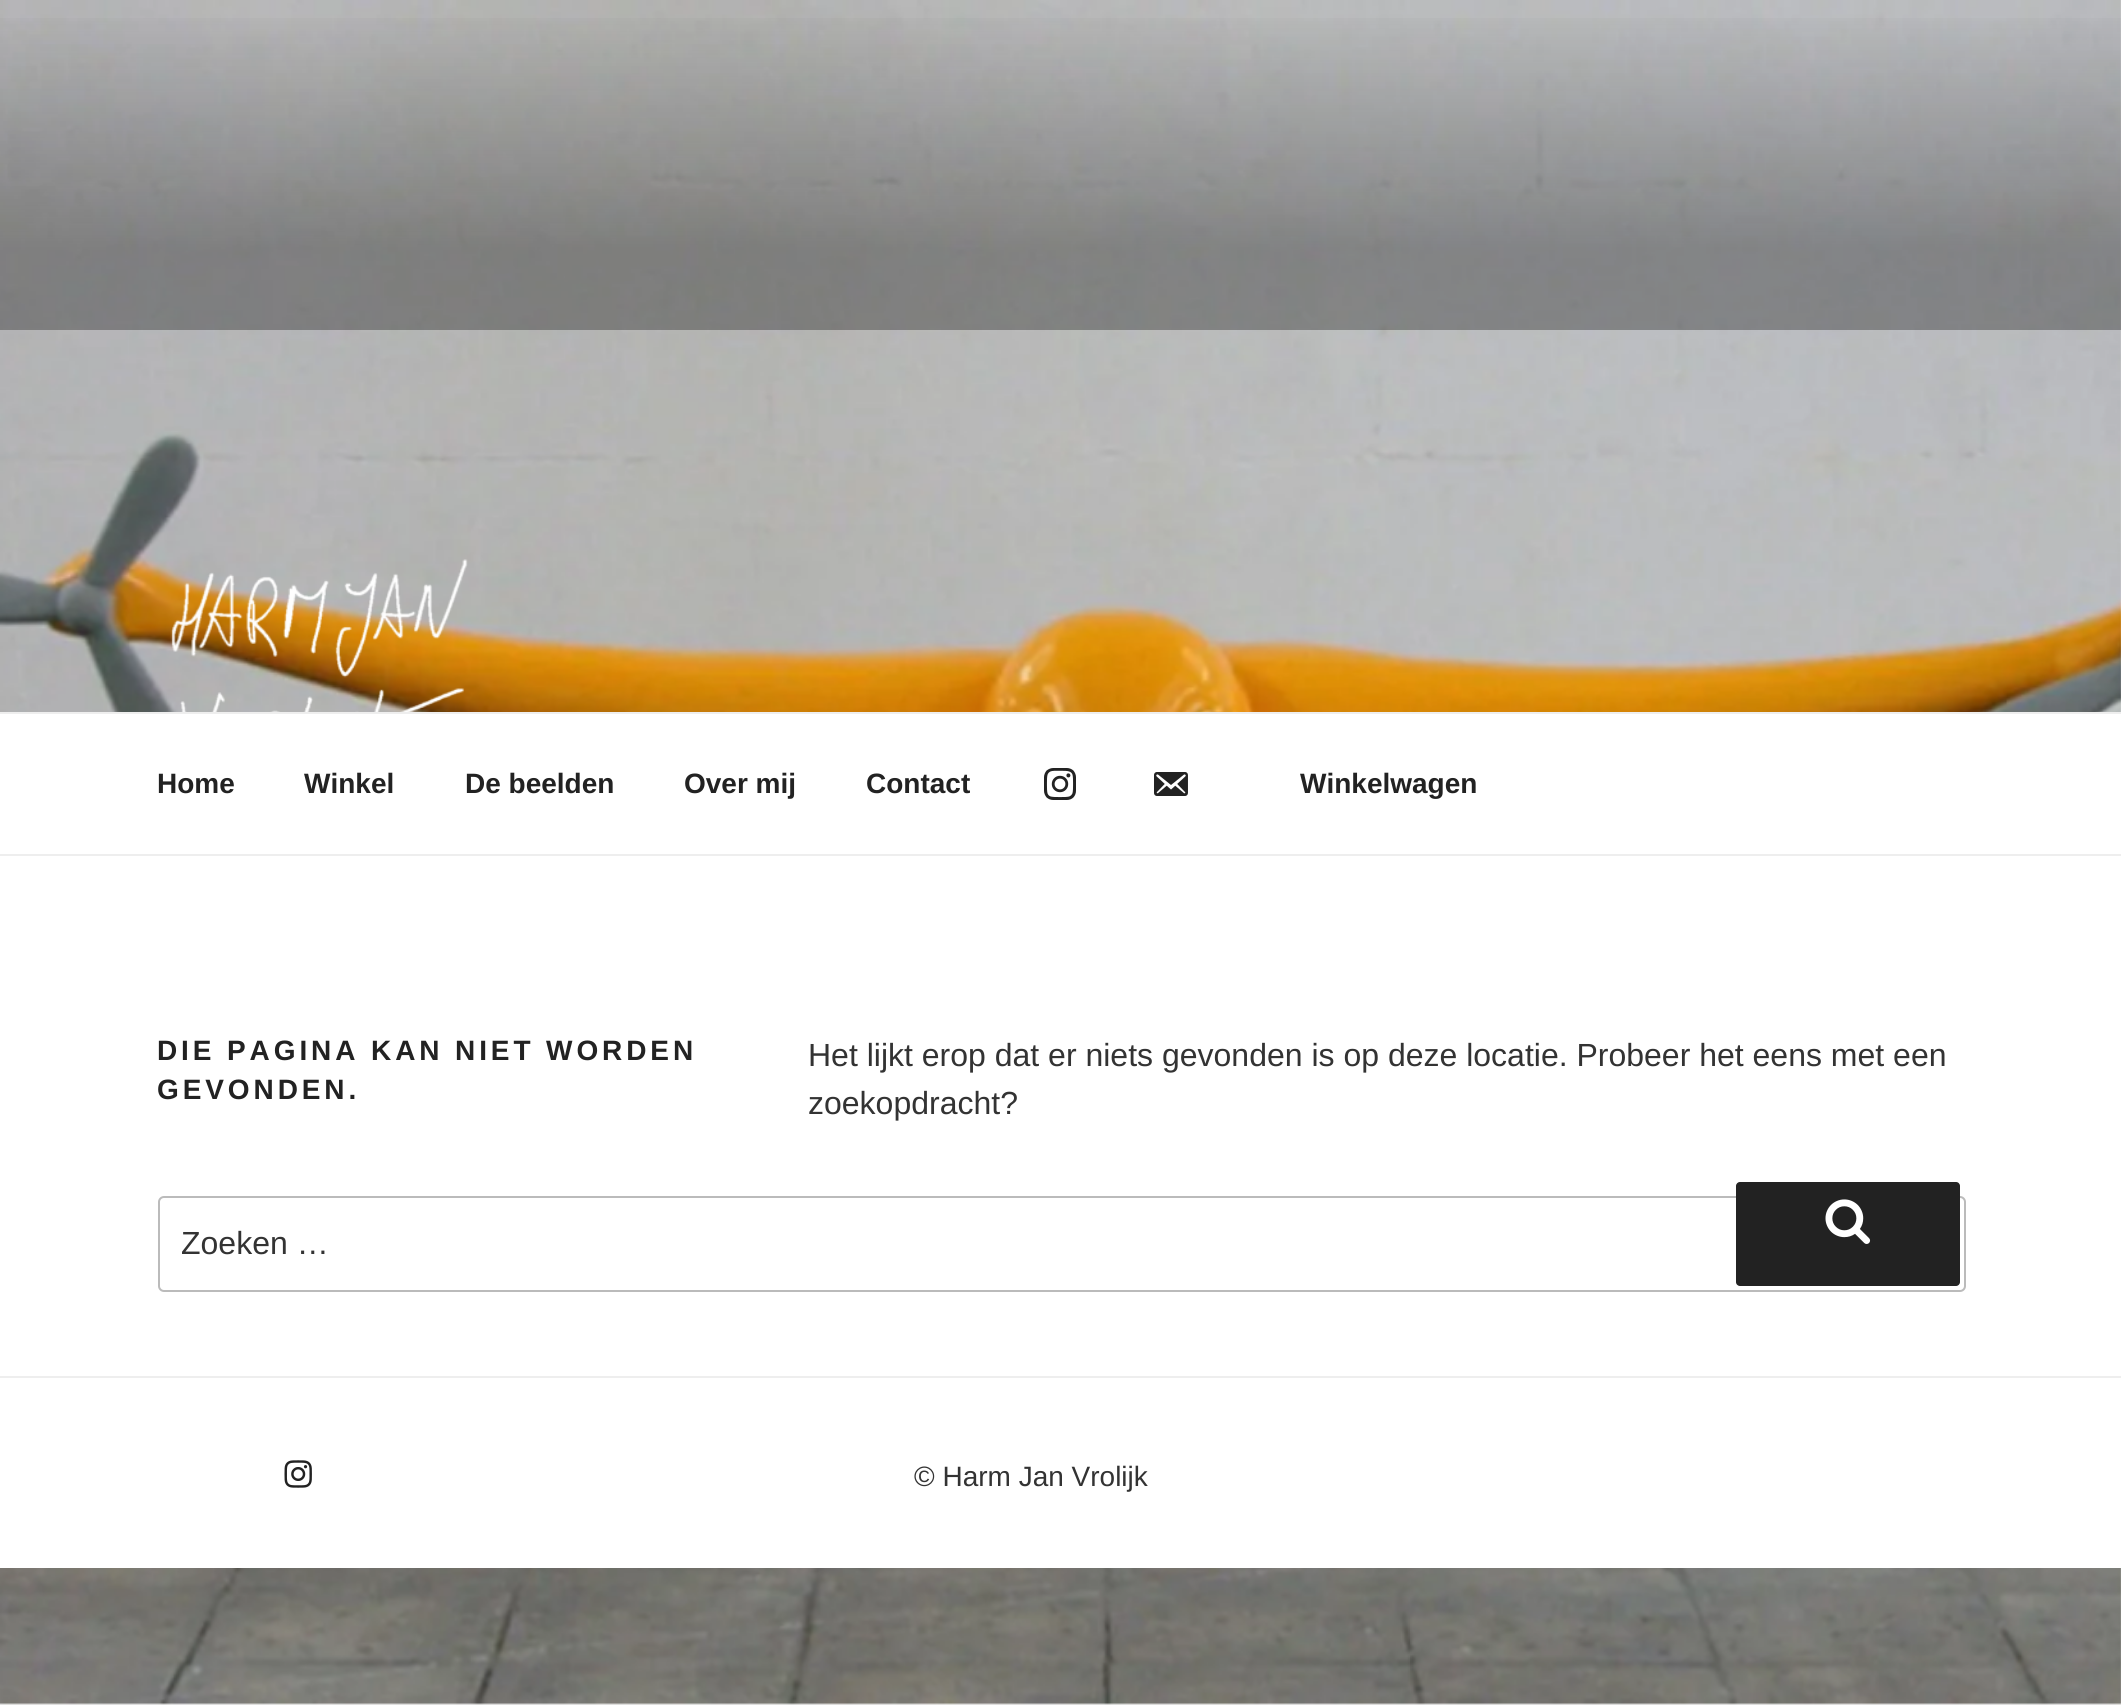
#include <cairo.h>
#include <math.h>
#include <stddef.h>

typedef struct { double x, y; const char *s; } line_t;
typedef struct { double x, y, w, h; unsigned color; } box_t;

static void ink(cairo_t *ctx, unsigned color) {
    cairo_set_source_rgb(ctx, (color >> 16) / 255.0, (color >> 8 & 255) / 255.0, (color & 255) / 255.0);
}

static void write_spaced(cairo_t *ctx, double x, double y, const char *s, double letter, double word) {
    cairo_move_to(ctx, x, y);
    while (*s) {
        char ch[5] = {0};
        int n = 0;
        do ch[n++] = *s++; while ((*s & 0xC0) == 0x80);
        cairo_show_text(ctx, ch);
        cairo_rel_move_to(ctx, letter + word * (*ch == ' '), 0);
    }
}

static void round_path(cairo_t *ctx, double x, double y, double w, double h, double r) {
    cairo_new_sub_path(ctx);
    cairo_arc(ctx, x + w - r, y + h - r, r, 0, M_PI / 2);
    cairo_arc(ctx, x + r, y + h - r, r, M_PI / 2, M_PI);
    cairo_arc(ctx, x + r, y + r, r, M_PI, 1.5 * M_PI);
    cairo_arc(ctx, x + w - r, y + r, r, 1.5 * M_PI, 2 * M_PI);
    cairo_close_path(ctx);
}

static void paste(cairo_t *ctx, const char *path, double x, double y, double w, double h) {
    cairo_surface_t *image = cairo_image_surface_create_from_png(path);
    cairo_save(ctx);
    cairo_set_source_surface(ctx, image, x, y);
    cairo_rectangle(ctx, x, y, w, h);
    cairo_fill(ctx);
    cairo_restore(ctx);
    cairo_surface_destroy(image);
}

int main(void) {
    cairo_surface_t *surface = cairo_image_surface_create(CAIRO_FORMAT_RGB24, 2121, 1705);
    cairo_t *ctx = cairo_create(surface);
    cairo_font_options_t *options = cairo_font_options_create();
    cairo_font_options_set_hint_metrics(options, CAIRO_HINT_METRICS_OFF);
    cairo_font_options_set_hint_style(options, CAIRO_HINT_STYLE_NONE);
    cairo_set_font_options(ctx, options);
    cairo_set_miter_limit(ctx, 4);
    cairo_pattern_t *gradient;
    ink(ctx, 0xFFFFFF);
    cairo_paint(ctx);
    paste(ctx, "media/1.png", 0, 0, 2121, 1705);
    gradient = cairo_pattern_create_linear(1061, 0, 1061, 330);
    cairo_pattern_add_color_stop_rgba(gradient, 0, 0, 0, 0, 0);
    cairo_pattern_add_color_stop_rgba(gradient, 0.75, 0, 0, 0, 0.3);
    cairo_pattern_add_color_stop_rgba(gradient, 1, 0, 0, 0, 0.3);
    cairo_set_source(ctx, gradient);
    cairo_pattern_destroy(gradient);
    cairo_rectangle(ctx, 0, 18, 2121, 312);
    cairo_fill(ctx);
    paste(ctx, "media/2.png", 170, 559, 298, 153);
    {
        static const box_t items[] = {
            {0, 714, 2121, 140, 0xFFFFFF},
            {0, 712, 2121, 2, 0xEEEEEE},
            {0, 854, 2121, 2, 0xEEEEEE},
        };
        for (size_t i = 0; i < sizeof items / sizeof *items; i++) {
            ink(ctx, items[i].color);
            cairo_rectangle(ctx, items[i].x, items[i].y, items[i].w, items[i].h);
            cairo_fill(ctx);
        }
    }
    cairo_select_font_face(ctx, "Liberation Sans", CAIRO_FONT_SLANT_NORMAL, CAIRO_FONT_WEIGHT_BOLD);
    cairo_set_font_size(ctx, 28);
    ink(ctx, 0x222222);
    {
        static const line_t items[] = {
            {157, 793, "Home"},
            {304, 793, "Winkel"},
            {465, 793, "De beelden"},
            {684, 793, "Over mij"},
            {866, 793, "Contact"},
        };
        for (size_t i = 0; i < sizeof items / sizeof *items; i++) {
            cairo_move_to(ctx, items[i].x, items[i].y);
            cairo_show_text(ctx, items[i].s);
        }
    }
    paste(ctx, "media/3.png", 1044, 768, 32, 32);
    paste(ctx, "media/4.png", 1154, 772, 34, 24);
    cairo_move_to(ctx, 1300, 793);
    cairo_show_text(ctx, "Winkelwagen");
    ink(ctx, 0xFFFFFF);
    cairo_rectangle(ctx, 0, 856, 2121, 712);
    cairo_fill(ctx);
    ink(ctx, 0x222222);
    write_spaced(ctx, 157, 1060, "DIE PAGINA KAN NIET WORDEN", 3.9, 0);
    write_spaced(ctx, 157, 1099, "GEVONDEN.", 3.9, 0);
    cairo_select_font_face(ctx, "Liberation Sans", CAIRO_FONT_SLANT_NORMAL, CAIRO_FONT_WEIGHT_NORMAL);
    cairo_set_font_size(ctx, 32);
    ink(ctx, 0x333333);
    cairo_move_to(ctx, 808, 1066);
    cairo_show_text(ctx, "Het lijkt erop dat er niets gevonden is op deze locatie. Probeer het eens met een");
    cairo_move_to(ctx, 808, 1114);
    cairo_show_text(ctx, "zoekopdracht?");
    round_path(ctx, 159, 1197, 1806, 94, 5);
    ink(ctx, 0xBBBBBB);
    cairo_stroke(ctx);
    ink(ctx, 0x333333);
    cairo_move_to(ctx, 181, 1254);
    cairo_show_text(ctx, "Zoeken …");
    ink(ctx, 0x222222);
    round_path(ctx, 1736, 1182, 224, 104, 4);
    cairo_fill(ctx);
    paste(ctx, "media/5.png", 1825, 1199, 46, 45);
    ink(ctx, 0xEEEEEE);
    cairo_rectangle(ctx, 0, 1376, 2121, 2);
    cairo_fill(ctx);
    paste(ctx, "media/6.png", 284, 1460, 28, 28);
    cairo_set_font_size(ctx, 28);
    ink(ctx, 0x333333);
    cairo_move_to(ctx, 914, 1486);
    cairo_show_text(ctx, "© Harm Jan Vrolijk");
    cairo_surface_write_to_png(surface, "image.png");
    cairo_font_options_destroy(options);
    cairo_destroy(ctx);
    cairo_surface_destroy(surface);
    return 0;
}
